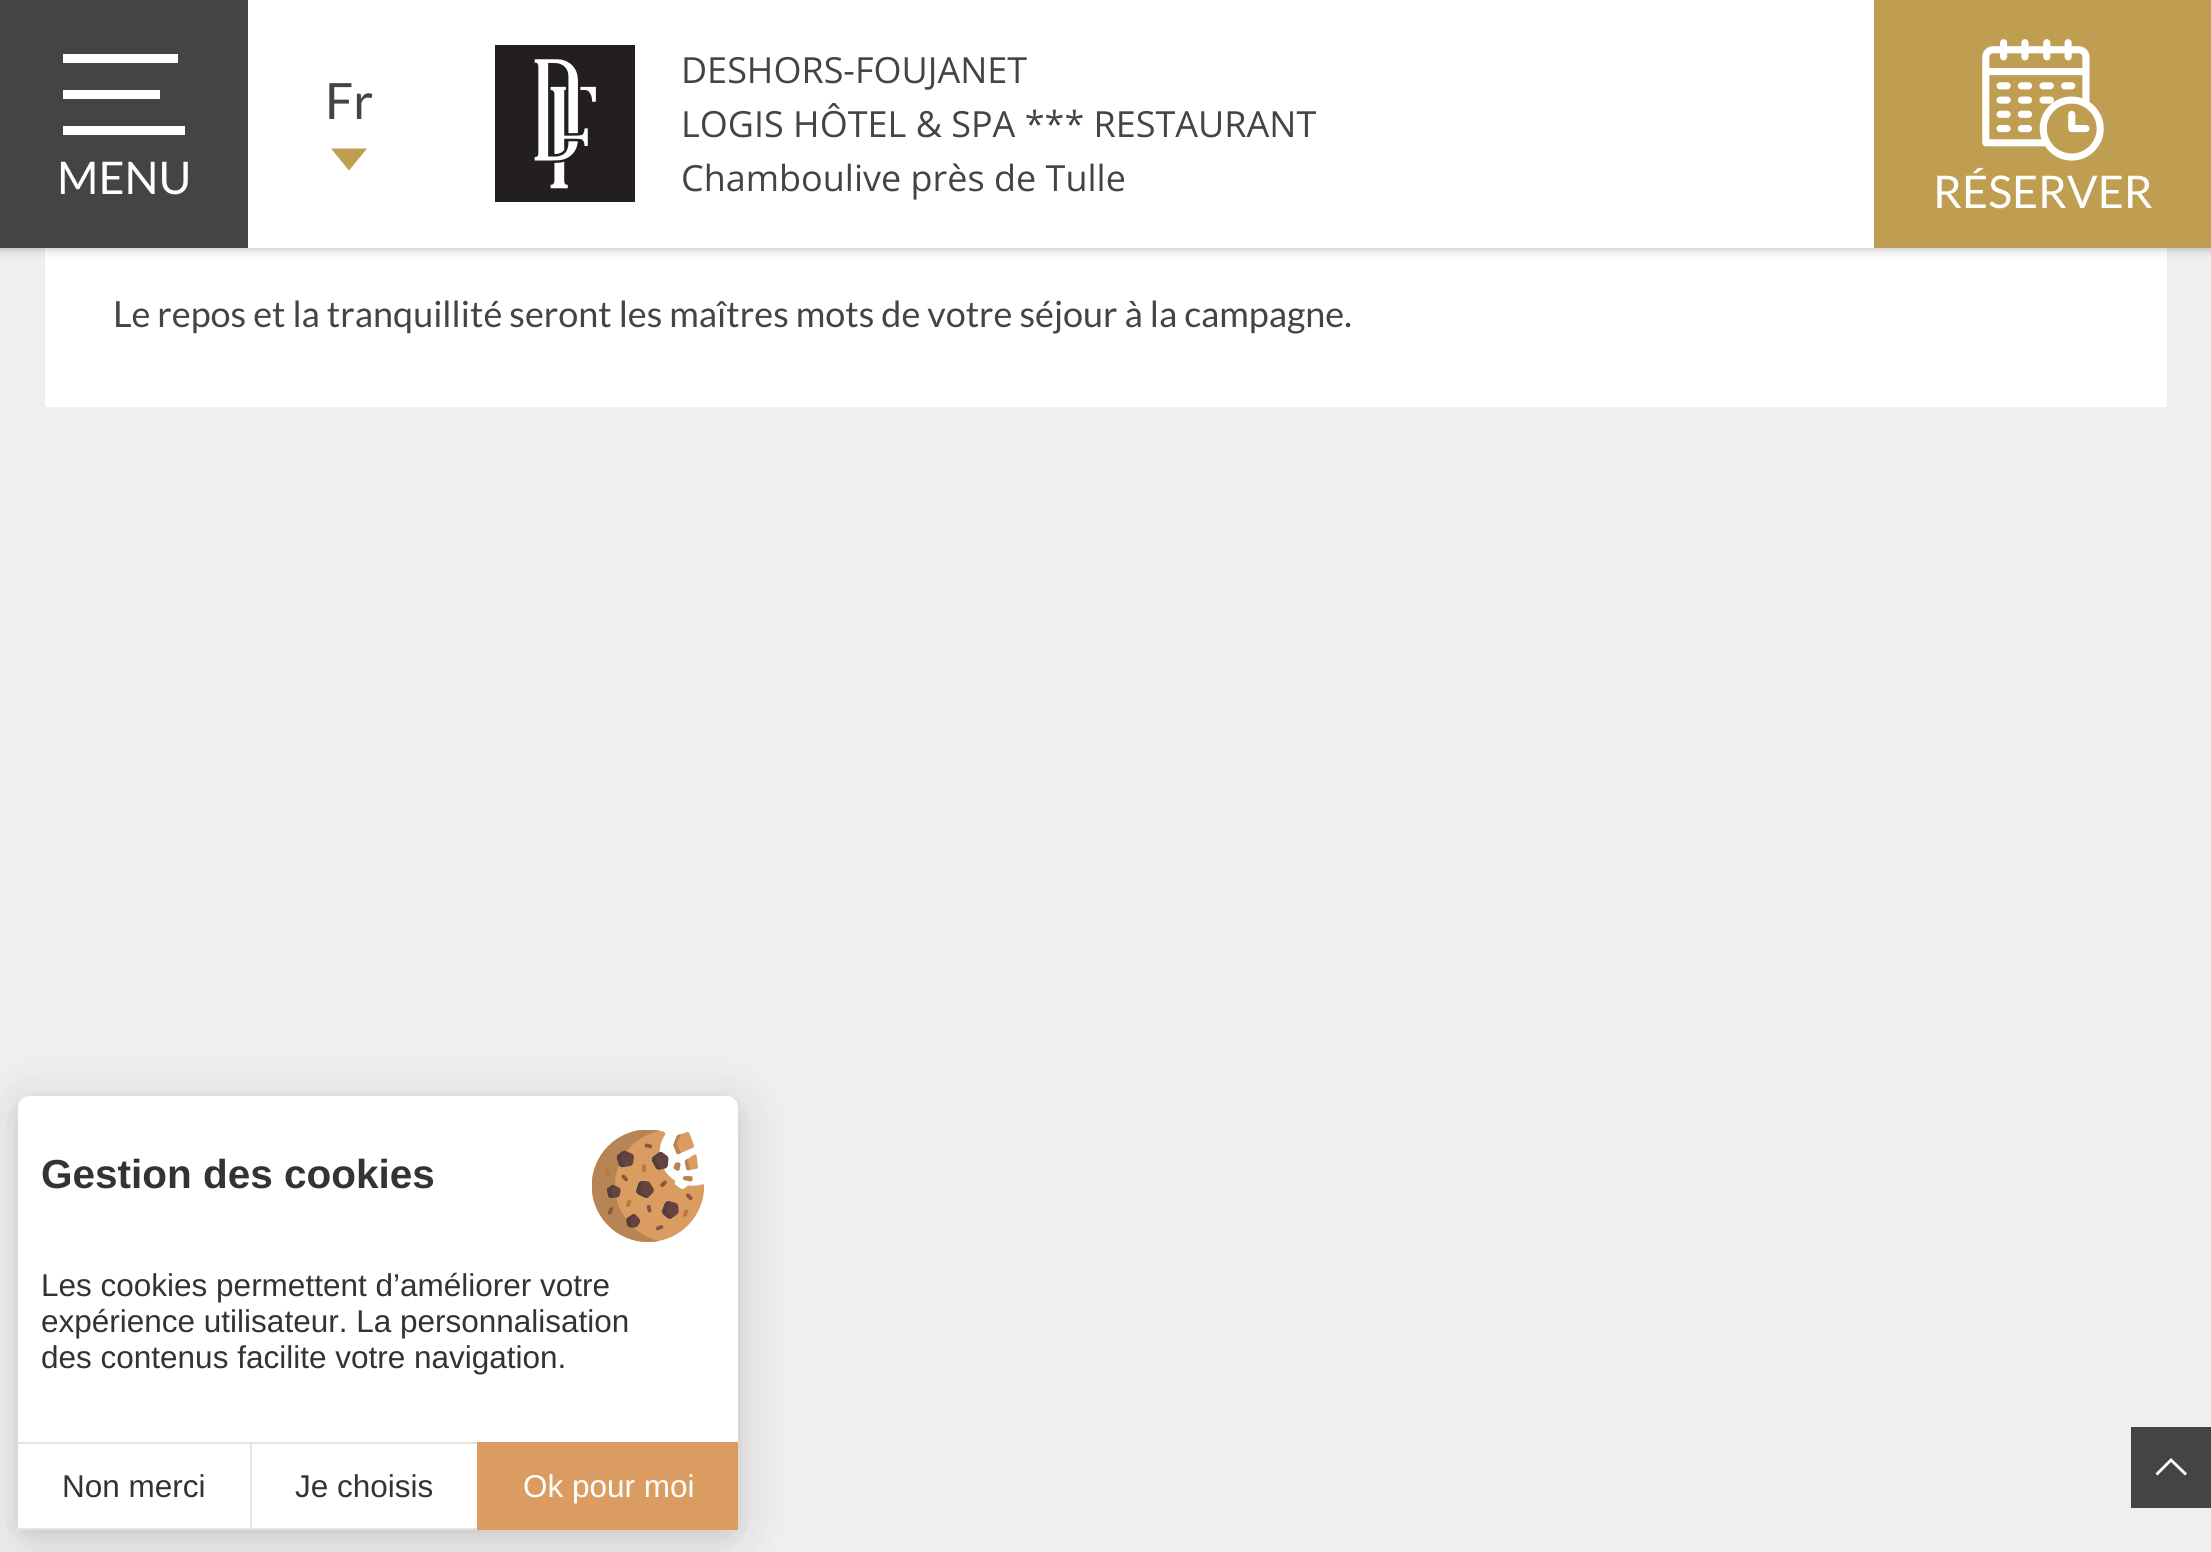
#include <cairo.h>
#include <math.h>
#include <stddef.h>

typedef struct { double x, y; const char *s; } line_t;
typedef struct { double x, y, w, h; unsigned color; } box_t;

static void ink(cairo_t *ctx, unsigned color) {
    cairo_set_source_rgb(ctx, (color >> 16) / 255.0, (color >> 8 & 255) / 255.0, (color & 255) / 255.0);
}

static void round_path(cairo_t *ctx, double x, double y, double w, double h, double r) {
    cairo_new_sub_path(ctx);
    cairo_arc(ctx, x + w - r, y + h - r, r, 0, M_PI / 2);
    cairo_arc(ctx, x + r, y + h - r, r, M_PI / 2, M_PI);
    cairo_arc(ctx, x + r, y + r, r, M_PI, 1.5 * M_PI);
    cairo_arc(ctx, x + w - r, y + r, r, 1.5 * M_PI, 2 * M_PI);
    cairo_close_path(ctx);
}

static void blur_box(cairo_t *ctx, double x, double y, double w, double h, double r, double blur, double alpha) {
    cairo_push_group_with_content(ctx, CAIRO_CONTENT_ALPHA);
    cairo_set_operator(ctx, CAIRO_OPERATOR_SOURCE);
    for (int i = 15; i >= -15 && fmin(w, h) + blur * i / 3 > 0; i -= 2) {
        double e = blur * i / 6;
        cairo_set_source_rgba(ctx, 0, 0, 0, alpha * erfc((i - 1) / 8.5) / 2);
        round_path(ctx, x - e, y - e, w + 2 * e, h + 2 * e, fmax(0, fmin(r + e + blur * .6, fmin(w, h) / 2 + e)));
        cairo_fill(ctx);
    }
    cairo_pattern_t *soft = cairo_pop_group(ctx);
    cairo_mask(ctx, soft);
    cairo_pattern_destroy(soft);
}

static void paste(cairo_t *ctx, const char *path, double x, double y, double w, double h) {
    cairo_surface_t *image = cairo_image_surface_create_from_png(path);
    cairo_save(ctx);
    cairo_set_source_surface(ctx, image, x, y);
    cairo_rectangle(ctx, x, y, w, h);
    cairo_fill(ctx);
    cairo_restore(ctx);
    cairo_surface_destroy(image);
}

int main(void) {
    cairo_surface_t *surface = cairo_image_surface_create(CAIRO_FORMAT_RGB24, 2211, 1552);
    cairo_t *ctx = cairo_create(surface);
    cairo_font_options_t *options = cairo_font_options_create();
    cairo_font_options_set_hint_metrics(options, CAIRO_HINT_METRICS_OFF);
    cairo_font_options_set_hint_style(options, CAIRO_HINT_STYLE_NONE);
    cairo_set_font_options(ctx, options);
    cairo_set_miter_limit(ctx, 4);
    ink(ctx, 0xEFEFEF);
    cairo_paint(ctx);
    ink(ctx, 0xFFFFFF);
    cairo_rectangle(ctx, 45, 248, 2122, 159);
    cairo_fill(ctx);
    ink(ctx, 0x000000);
    blur_box(ctx, 0, 0, 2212, 248, 0, 5.5, 0.3);
    ink(ctx, 0xFFFFFF);
    cairo_rectangle(ctx, 248, 0, 1626, 248);
    cairo_fill(ctx);
    cairo_select_font_face(ctx, "Lato", CAIRO_FONT_SLANT_NORMAL, CAIRO_FONT_WEIGHT_NORMAL);
    cairo_set_font_size(ctx, 50);
    ink(ctx, 0x454344);
    cairo_move_to(ctx, 325, 119);
    cairo_show_text(ctx, "Fr");
    ink(ctx, 0xBF9E51);
    cairo_new_path(ctx);
    cairo_move_to(ctx, 349, 170.5);
    cairo_line_to(ctx, 331, 148.5);
    cairo_line_to(ctx, 367, 148.5);
    cairo_close_path(ctx);
    cairo_fill(ctx);
    {
        static const box_t items[] = {
            {0, 0, 248, 248, 0x454344},
            {63, 54, 115, 9, 0xFFFFFF},
            {63, 90, 97, 9, 0xFFFFFF},
            {63, 126, 122, 9, 0xFFFFFF},
        };
        for (size_t i = 0; i < sizeof items / sizeof *items; i++) {
            ink(ctx, items[i].color);
            cairo_rectangle(ctx, items[i].x, items[i].y, items[i].w, items[i].h);
            cairo_fill(ctx);
        }
    }
    cairo_set_font_size(ctx, 45);
    cairo_move_to(ctx, 57, 194);
    cairo_show_text(ctx, "MENU");
    paste(ctx, "media/1.png", 495, 45, 140, 157);
    cairo_select_font_face(ctx, "Open Sans", CAIRO_FONT_SLANT_NORMAL, CAIRO_FONT_WEIGHT_NORMAL);
    cairo_set_font_size(ctx, 36);
    ink(ctx, 0x454344);
    {
        static const line_t items[] = {
            {681, 83, "DESHORS-FOUJANET"},
            {681, 137, "LOGIS HÔTEL & SPA *** RESTAURANT"},
            {681, 191, "Chamboulive près de Tulle"},
        };
        for (size_t i = 0; i < sizeof items / sizeof *items; i++) {
            cairo_move_to(ctx, items[i].x, items[i].y);
            cairo_show_text(ctx, items[i].s);
        }
    }
    ink(ctx, 0xBF9E51);
    cairo_rectangle(ctx, 1874, 0, 337, 248);
    cairo_fill(ctx);
    paste(ctx, "media/2.png", 1982, 39, 122, 122);
    cairo_select_font_face(ctx, "Lato", CAIRO_FONT_SLANT_NORMAL, CAIRO_FONT_WEIGHT_NORMAL);
    cairo_set_font_size(ctx, 45);
    ink(ctx, 0xFFFFFF);
    cairo_move_to(ctx, 1933, 208);
    cairo_show_text(ctx, "RÉSERVER");
    cairo_set_font_size(ctx, 36);
    ink(ctx, 0x454344);
    cairo_move_to(ctx, 113, 327);
    cairo_show_text(ctx, "Le repos et la tranquillité seront les maîtres mots de votre séjour à la campagne.");
    ink(ctx, 0x000000);
    blur_box(ctx, 18, 1100, 720, 435, 11, 7, 0.05);
    blur_box(ctx, 18, 1105, 720, 434, 11, 27, 0.15);
    ink(ctx, 0xFFFFFF);
    cairo_new_path(ctx);
    cairo_move_to(ctx, 29, 1096);
    cairo_line_to(ctx, 727, 1096);
    cairo_curve_to(ctx, 733, 1096, 738, 1101, 738, 1107);
    cairo_line_to(ctx, 738, 1530);
    cairo_line_to(ctx, 18, 1530);
    cairo_line_to(ctx, 18, 1107);
    cairo_curve_to(ctx, 18, 1101, 23, 1096, 29, 1096);
    cairo_close_path(ctx);
    cairo_fill(ctx);
    paste(ctx, "media/3.png", 592, 1130, 112, 112);
    cairo_select_font_face(ctx, "Liberation Sans", CAIRO_FONT_SLANT_NORMAL, CAIRO_FONT_WEIGHT_BOLD);
    cairo_set_font_size(ctx, 40.5);
    ink(ctx, 0x333333);
    cairo_move_to(ctx, 41, 1188);
    cairo_show_text(ctx, "Gestion des cookies");
    cairo_select_font_face(ctx, "Liberation Sans", CAIRO_FONT_SLANT_NORMAL, CAIRO_FONT_WEIGHT_NORMAL);
    cairo_set_font_size(ctx, 31.5);
    {
        static const line_t items[] = {
            {41, 1296, "Les cookies permettent d’améliorer votre"},
            {41, 1332, "expérience utilisateur. La personnalisation"},
            {41, 1368, "des contenus facilite votre navigation."},
        };
        for (size_t i = 0; i < sizeof items / sizeof *items; i++) {
            cairo_move_to(ctx, items[i].x, items[i].y);
            cairo_show_text(ctx, items[i].s);
        }
    }
    ink(ctx, 0xE8E3E3);
    cairo_rectangle(ctx, 18, 1442, 459, 2);
    cairo_fill(ctx);
    cairo_rectangle(ctx, 18, 1528, 459, 2);
    cairo_fill(ctx);
    ink(ctx, 0x333333);
    cairo_move_to(ctx, 62, 1497);
    cairo_show_text(ctx, "Non merci");
    ink(ctx, 0xE8E3E3);
    cairo_rectangle(ctx, 250, 1442, 2, 88);
    cairo_fill(ctx);
    ink(ctx, 0x333333);
    cairo_move_to(ctx, 295, 1497);
    cairo_show_text(ctx, "Je choisis");
    ink(ctx, 0xDA9C61);
    cairo_rectangle(ctx, 477, 1442, 261, 88);
    cairo_fill(ctx);
    ink(ctx, 0xFFFFFF);
    cairo_move_to(ctx, 523, 1497);
    cairo_show_text(ctx, "Ok pour moi");
    ink(ctx, 0x454344);
    cairo_rectangle(ctx, 2131, 1427, 80, 81);
    cairo_fill(ctx);
    ink(ctx, 0xFFFFFF);
    cairo_new_path(ctx);
    cairo_move_to(ctx, 2187, 1473.5);
    cairo_line_to(ctx, 2185, 1475.5);
    cairo_line_to(ctx, 2171, 1462);
    cairo_line_to(ctx, 2157.5, 1475.5);
    cairo_line_to(ctx, 2155.5, 1473.5);
    cairo_line_to(ctx, 2171, 1458);
    cairo_close_path(ctx);
    cairo_fill(ctx);
    cairo_surface_write_to_png(surface, "image.png");
    cairo_font_options_destroy(options);
    cairo_destroy(ctx);
    cairo_surface_destroy(surface);
    return 0;
}
